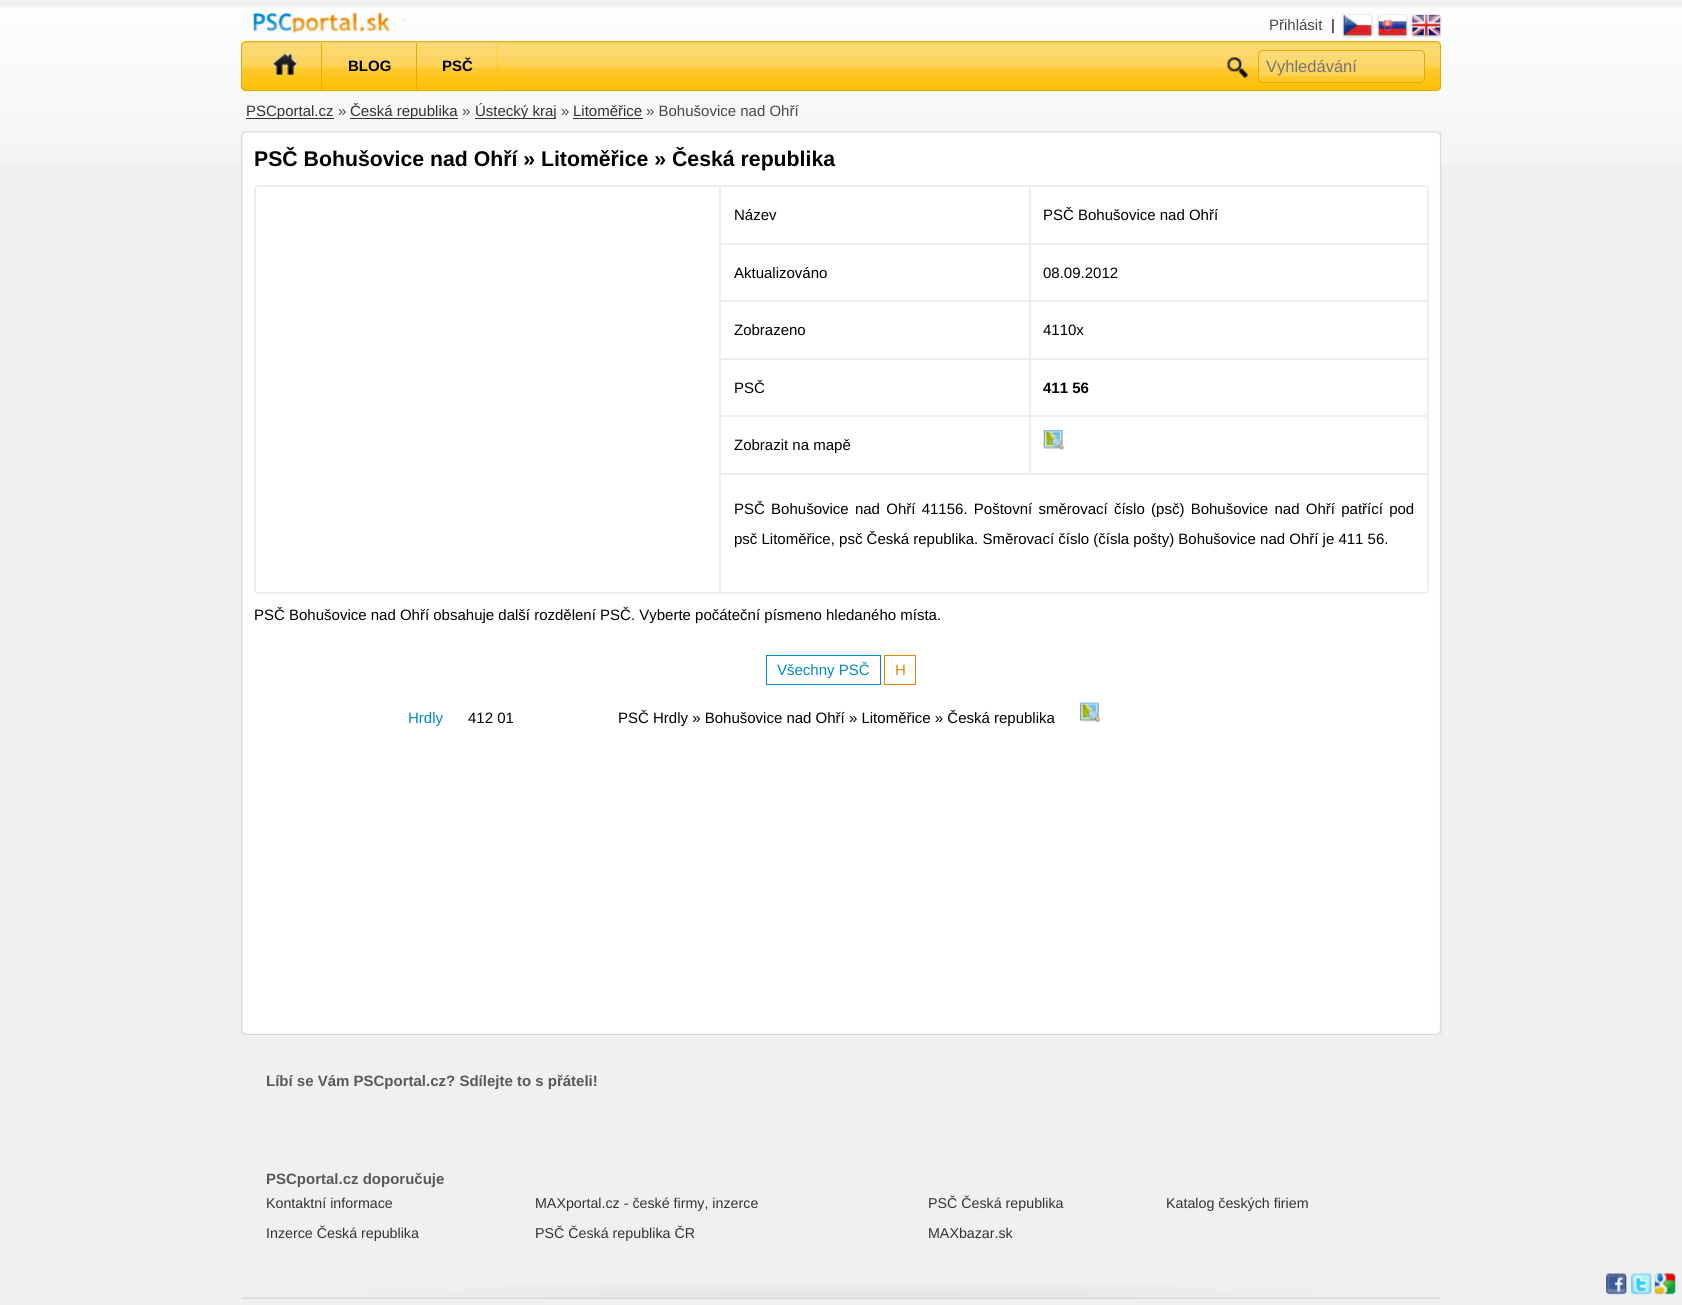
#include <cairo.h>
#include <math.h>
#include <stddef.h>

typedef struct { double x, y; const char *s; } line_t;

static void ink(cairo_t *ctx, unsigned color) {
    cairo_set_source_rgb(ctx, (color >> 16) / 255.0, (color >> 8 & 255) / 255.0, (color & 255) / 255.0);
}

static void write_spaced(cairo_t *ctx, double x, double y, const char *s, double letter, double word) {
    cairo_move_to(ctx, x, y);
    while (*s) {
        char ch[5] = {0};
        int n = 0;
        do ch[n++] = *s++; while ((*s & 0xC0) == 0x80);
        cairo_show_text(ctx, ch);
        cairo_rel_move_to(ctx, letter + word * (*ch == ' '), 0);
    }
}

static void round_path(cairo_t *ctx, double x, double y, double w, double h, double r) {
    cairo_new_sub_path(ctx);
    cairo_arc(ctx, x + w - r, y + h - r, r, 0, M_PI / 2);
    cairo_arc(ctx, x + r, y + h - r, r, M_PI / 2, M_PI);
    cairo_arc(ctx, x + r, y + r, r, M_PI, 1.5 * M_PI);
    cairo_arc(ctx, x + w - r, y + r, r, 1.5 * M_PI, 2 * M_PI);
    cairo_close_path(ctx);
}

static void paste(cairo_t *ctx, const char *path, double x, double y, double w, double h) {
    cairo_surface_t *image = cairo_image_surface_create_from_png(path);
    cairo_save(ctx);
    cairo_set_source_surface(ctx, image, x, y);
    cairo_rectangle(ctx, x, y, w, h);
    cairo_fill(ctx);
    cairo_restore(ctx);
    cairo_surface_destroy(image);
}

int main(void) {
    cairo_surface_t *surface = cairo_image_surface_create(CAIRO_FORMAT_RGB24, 1682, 1305);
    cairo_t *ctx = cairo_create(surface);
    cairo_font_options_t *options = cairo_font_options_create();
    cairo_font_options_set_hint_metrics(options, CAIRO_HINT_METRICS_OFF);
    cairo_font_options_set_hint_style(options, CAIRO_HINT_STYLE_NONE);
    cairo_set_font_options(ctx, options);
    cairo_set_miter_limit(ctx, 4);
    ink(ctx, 0xEFF0F1);
    cairo_paint(ctx);
    paste(ctx, "media/1.png", 0, 7, 1682, 157);
    paste(ctx, "media/2.png", 253, 12, 137, 21);
    paste(ctx, "media/3.png", 402, 18, 2, 2);
    cairo_select_font_face(ctx, "Liberation Sans", CAIRO_FONT_SLANT_NORMAL, CAIRO_FONT_WEIGHT_NORMAL);
    cairo_set_font_size(ctx, 15);
    ink(ctx, 0x494949);
    cairo_move_to(ctx, 1269, 30);
    cairo_show_text(ctx, "Přihlásit");
    ink(ctx, 0x000000);
    cairo_move_to(ctx, 1331, 30);
    cairo_show_text(ctx, "|");
    paste(ctx, "media/4.png", 1342, 14, 31, 24);
    paste(ctx, "media/5.png", 1377, 14, 31, 24);
    paste(ctx, "media/6.png", 1411, 14, 31, 24);
    ink(ctx, 0xFEC006);
    round_path(ctx, 241, 41, 1200, 50, 5);
    cairo_fill(ctx);
    paste(ctx, "media/7.png", 241, 42, 1201, 50);
    round_path(ctx, 241.5, 41.5, 1199, 49, 4.5);
    ink(ctx, 0xE3AB04);
    cairo_set_line_width(ctx, 1);
    cairo_stroke(ctx);
    ink(ctx, 0xFEC006);
    cairo_rectangle(ctx, 249, 88, 72, 1);
    cairo_fill(ctx);
    paste(ctx, "media/8.png", 248, 42, 74, 46);
    paste(ctx, "media/9.png", 273, 53, 24, 22);
    cairo_rectangle(ctx, 322, 88, 94, 1);
    cairo_fill(ctx);
    paste(ctx, "media/10.png", 321, 42, 96, 46);
    ink(ctx, 0xE3AB04);
    cairo_rectangle(ctx, 321, 43, 1, 47);
    cairo_fill(ctx);
    cairo_select_font_face(ctx, "Liberation Sans", CAIRO_FONT_SLANT_NORMAL, CAIRO_FONT_WEIGHT_BOLD);
    ink(ctx, 0x000000);
    cairo_move_to(ctx, 348, 71);
    cairo_show_text(ctx, "BLOG");
    ink(ctx, 0xFEC006);
    cairo_rectangle(ctx, 417, 43, 81, 46);
    cairo_fill(ctx);
    paste(ctx, "media/11.png", 416, 42, 82, 46);
    ink(ctx, 0xE3AB04);
    cairo_rectangle(ctx, 416, 43, 1, 47);
    cairo_fill(ctx);
    ink(ctx, 0x000000);
    cairo_move_to(ctx, 442, 71);
    cairo_show_text(ctx, "PSČ");
    paste(ctx, "media/12.png", 1227, 57, 21, 21);
    paste(ctx, "media/13.png", 1257, 51, 168, 32);
    round_path(ctx, 1258.5, 50.5, 166, 32, 4.5);
    ink(ctx, 0xE3AB04);
    cairo_stroke(ctx);
    cairo_select_font_face(ctx, "Liberation Sans", CAIRO_FONT_SLANT_NORMAL, CAIRO_FONT_WEIGHT_NORMAL);
    cairo_set_font_size(ctx, 16.5);
    ink(ctx, 0x757575);
    cairo_move_to(ctx, 1266, 72);
    cairo_show_text(ctx, "Vyhledávání");
    ink(ctx, 0x333333);
    cairo_rectangle(ctx, 246, 118, 88, 1);
    cairo_fill(ctx);
    cairo_set_font_size(ctx, 15);
    cairo_move_to(ctx, 246, 116);
    cairo_show_text(ctx, "PSCportal.cz");
    ink(ctx, 0x494949);
    cairo_move_to(ctx, 338, 116);
    cairo_show_text(ctx, "»");
    ink(ctx, 0x333333);
    cairo_rectangle(ctx, 350, 118, 108, 1);
    cairo_fill(ctx);
    cairo_move_to(ctx, 350, 116);
    cairo_show_text(ctx, "Česká republika");
    ink(ctx, 0x494949);
    cairo_move_to(ctx, 462, 116);
    cairo_show_text(ctx, "»");
    ink(ctx, 0x333333);
    cairo_rectangle(ctx, 475, 118, 81, 1);
    cairo_fill(ctx);
    cairo_move_to(ctx, 475, 116);
    cairo_show_text(ctx, "Ústecký kraj");
    ink(ctx, 0x494949);
    cairo_move_to(ctx, 561, 116);
    cairo_show_text(ctx, "»");
    ink(ctx, 0x333333);
    cairo_move_to(ctx, 573, 116);
    cairo_show_text(ctx, "Litoměřice");
    cairo_rectangle(ctx, 573, 118, 70, 1);
    cairo_fill(ctx);
    ink(ctx, 0x494949);
    cairo_move_to(ctx, 646, 116);
    cairo_show_text(ctx, "» Bohušovice nad Ohří");
    paste(ctx, "media/14.png", 241, 131, 1201, 904);
    paste(ctx, "media/15.png", 241, 131, 1201, 4);
    cairo_select_font_face(ctx, "Liberation Sans", CAIRO_FONT_SLANT_NORMAL, CAIRO_FONT_WEIGHT_BOLD);
    cairo_set_font_size(ctx, 21.25);
    ink(ctx, 0x000000);
    cairo_move_to(ctx, 254, 166);
    cairo_show_text(ctx, "PSČ Bohušovice nad Ohří » Litoměřice » Česká republika");
    round_path(ctx, 254.5, 185.5, 1174, 408, 4.5);
    ink(ctx, 0xEEEEEE);
    cairo_stroke(ctx);
    cairo_rectangle(ctx, 255.5, 186.5, 464, 406);
    cairo_stroke(ctx);
    cairo_rectangle(ctx, 720.5, 186.5, 309, 57);
    cairo_stroke(ctx);
    cairo_select_font_face(ctx, "Liberation Sans", CAIRO_FONT_SLANT_NORMAL, CAIRO_FONT_WEIGHT_NORMAL);
    cairo_set_font_size(ctx, 15);
    ink(ctx, 0x000000);
    cairo_move_to(ctx, 734, 220);
    cairo_show_text(ctx, "Název");
    cairo_rectangle(ctx, 1030.5, 186.5, 397, 57);
    ink(ctx, 0xEEEEEE);
    cairo_stroke(ctx);
    ink(ctx, 0x000000);
    cairo_move_to(ctx, 1043, 220);
    cairo_show_text(ctx, "PSČ Bohušovice nad Ohří");
    cairo_rectangle(ctx, 720.5, 244.5, 309, 56);
    ink(ctx, 0xEEEEEE);
    cairo_stroke(ctx);
    ink(ctx, 0x000000);
    cairo_move_to(ctx, 734, 278);
    cairo_show_text(ctx, "Aktualizováno");
    cairo_rectangle(ctx, 1030.5, 244.5, 397, 56);
    ink(ctx, 0xEEEEEE);
    cairo_stroke(ctx);
    ink(ctx, 0x000000);
    cairo_move_to(ctx, 1043, 278);
    cairo_show_text(ctx, "08.09.2012");
    cairo_rectangle(ctx, 720.5, 301.5, 309, 57);
    ink(ctx, 0xEEEEEE);
    cairo_stroke(ctx);
    ink(ctx, 0x000000);
    cairo_move_to(ctx, 734, 335);
    cairo_show_text(ctx, "Zobrazeno");
    cairo_rectangle(ctx, 1030.5, 301.5, 397, 57);
    ink(ctx, 0xEEEEEE);
    cairo_stroke(ctx);
    ink(ctx, 0x000000);
    cairo_move_to(ctx, 1043, 335);
    cairo_show_text(ctx, "4110x");
    cairo_rectangle(ctx, 720.5, 359.5, 309, 56);
    ink(ctx, 0xEEEEEE);
    cairo_stroke(ctx);
    ink(ctx, 0x000000);
    cairo_move_to(ctx, 734, 393);
    cairo_show_text(ctx, "PSČ");
    cairo_rectangle(ctx, 1030.5, 359.5, 397, 56);
    ink(ctx, 0xEEEEEE);
    cairo_stroke(ctx);
    cairo_select_font_face(ctx, "Liberation Sans", CAIRO_FONT_SLANT_NORMAL, CAIRO_FONT_WEIGHT_BOLD);
    ink(ctx, 0x000000);
    cairo_move_to(ctx, 1043, 393);
    cairo_show_text(ctx, "411 56");
    cairo_rectangle(ctx, 720.5, 416.5, 309, 57);
    ink(ctx, 0xEEEEEE);
    cairo_stroke(ctx);
    cairo_select_font_face(ctx, "Liberation Sans", CAIRO_FONT_SLANT_NORMAL, CAIRO_FONT_WEIGHT_NORMAL);
    ink(ctx, 0x000000);
    cairo_move_to(ctx, 734, 450);
    cairo_show_text(ctx, "Zobrazit na mapě");
    cairo_rectangle(ctx, 1030.5, 416.5, 397, 57);
    ink(ctx, 0xEEEEEE);
    cairo_stroke(ctx);
    paste(ctx, "media/16.png", 1043, 430, 21, 20);
    cairo_rectangle(ctx, 720.5, 474.5, 707, 118);
    cairo_stroke(ctx);
    ink(ctx, 0x000000);
    write_spaced(ctx, 734, 514, "PSČ Bohušovice nad Ohří 41156. Poštovní směrovací číslo (psč) Bohušovice nad Ohří patřící pod", 0, 2.1);
    cairo_move_to(ctx, 734, 544);
    cairo_show_text(ctx, "psč Litoměřice, psč Česká republika. Směrovací číslo (čísla pošty) Bohušovice nad Ohří je 411 56.");
    cairo_move_to(ctx, 254, 620);
    cairo_show_text(ctx, "PSČ Bohušovice nad Ohří obsahuje další rozdělení PSČ. Vyberte počáteční písmeno hledaného místa.");
    cairo_rectangle(ctx, 766.5, 655.5, 114, 29);
    ink(ctx, 0x0088CC);
    cairo_stroke(ctx);
    cairo_move_to(ctx, 777, 675);
    cairo_show_text(ctx, "Všechny PSČ");
    cairo_rectangle(ctx, 884.5, 655.5, 31, 29);
    ink(ctx, 0xE68902);
    cairo_stroke(ctx);
    cairo_move_to(ctx, 895, 675);
    cairo_show_text(ctx, "H");
    ink(ctx, 0x0088CC);
    cairo_move_to(ctx, 408, 723);
    cairo_show_text(ctx, "Hrdly");
    ink(ctx, 0x000000);
    cairo_move_to(ctx, 468, 723);
    cairo_show_text(ctx, "412 01");
    cairo_move_to(ctx, 618, 723);
    cairo_show_text(ctx, "PSČ Hrdly » Bohušovice nad Ohří » Litoměřice » Česká republika");
    paste(ctx, "media/17.png", 1080, 702, 20, 21);
    paste(ctx, "media/18.png", 241, 1031, 1200, 4);
    cairo_select_font_face(ctx, "Liberation Sans", CAIRO_FONT_SLANT_NORMAL, CAIRO_FONT_WEIGHT_BOLD);
    ink(ctx, 0x595A54);
    cairo_move_to(ctx, 266, 1086);
    cairo_show_text(ctx, "Líbí se Vám PSCportal.cz? Sdílejte to s přáteli!");
    cairo_move_to(ctx, 266, 1184);
    cairo_show_text(ctx, "PSCportal.cz doporučuje");
    cairo_select_font_face(ctx, "Liberation Sans", CAIRO_FONT_SLANT_NORMAL, CAIRO_FONT_WEIGHT_NORMAL);
    cairo_set_font_size(ctx, 14.25);
    ink(ctx, 0x333333);
    {
        static const line_t items[] = {
            {266, 1208, "Kontaktní informace"},
            {535, 1208, "MAXportal.cz - české firmy, inzerce"},
            {928, 1208, "PSČ Česká republika"},
            {1166, 1208, "Katalog českých firiem"},
            {266, 1238, "Inzerce Česká republika"},
            {535, 1238, "PSČ Česká republika ČR"},
            {928, 1238, "MAXbazar.sk"},
        };
        for (size_t i = 0; i < sizeof items / sizeof *items; i++) {
            cairo_move_to(ctx, items[i].x, items[i].y);
            cairo_show_text(ctx, items[i].s);
        }
    }
    paste(ctx, "media/19.png", 241, 1284, 1200, 15);
    paste(ctx, "media/20.png", 1606, 1273, 21, 22);
    paste(ctx, "media/21.png", 1631, 1273, 21, 22);
    paste(ctx, "media/22.png", 1654, 1273, 22, 22);
    cairo_surface_write_to_png(surface, "image.png");
    cairo_font_options_destroy(options);
    cairo_destroy(ctx);
    cairo_surface_destroy(surface);
    return 0;
}
